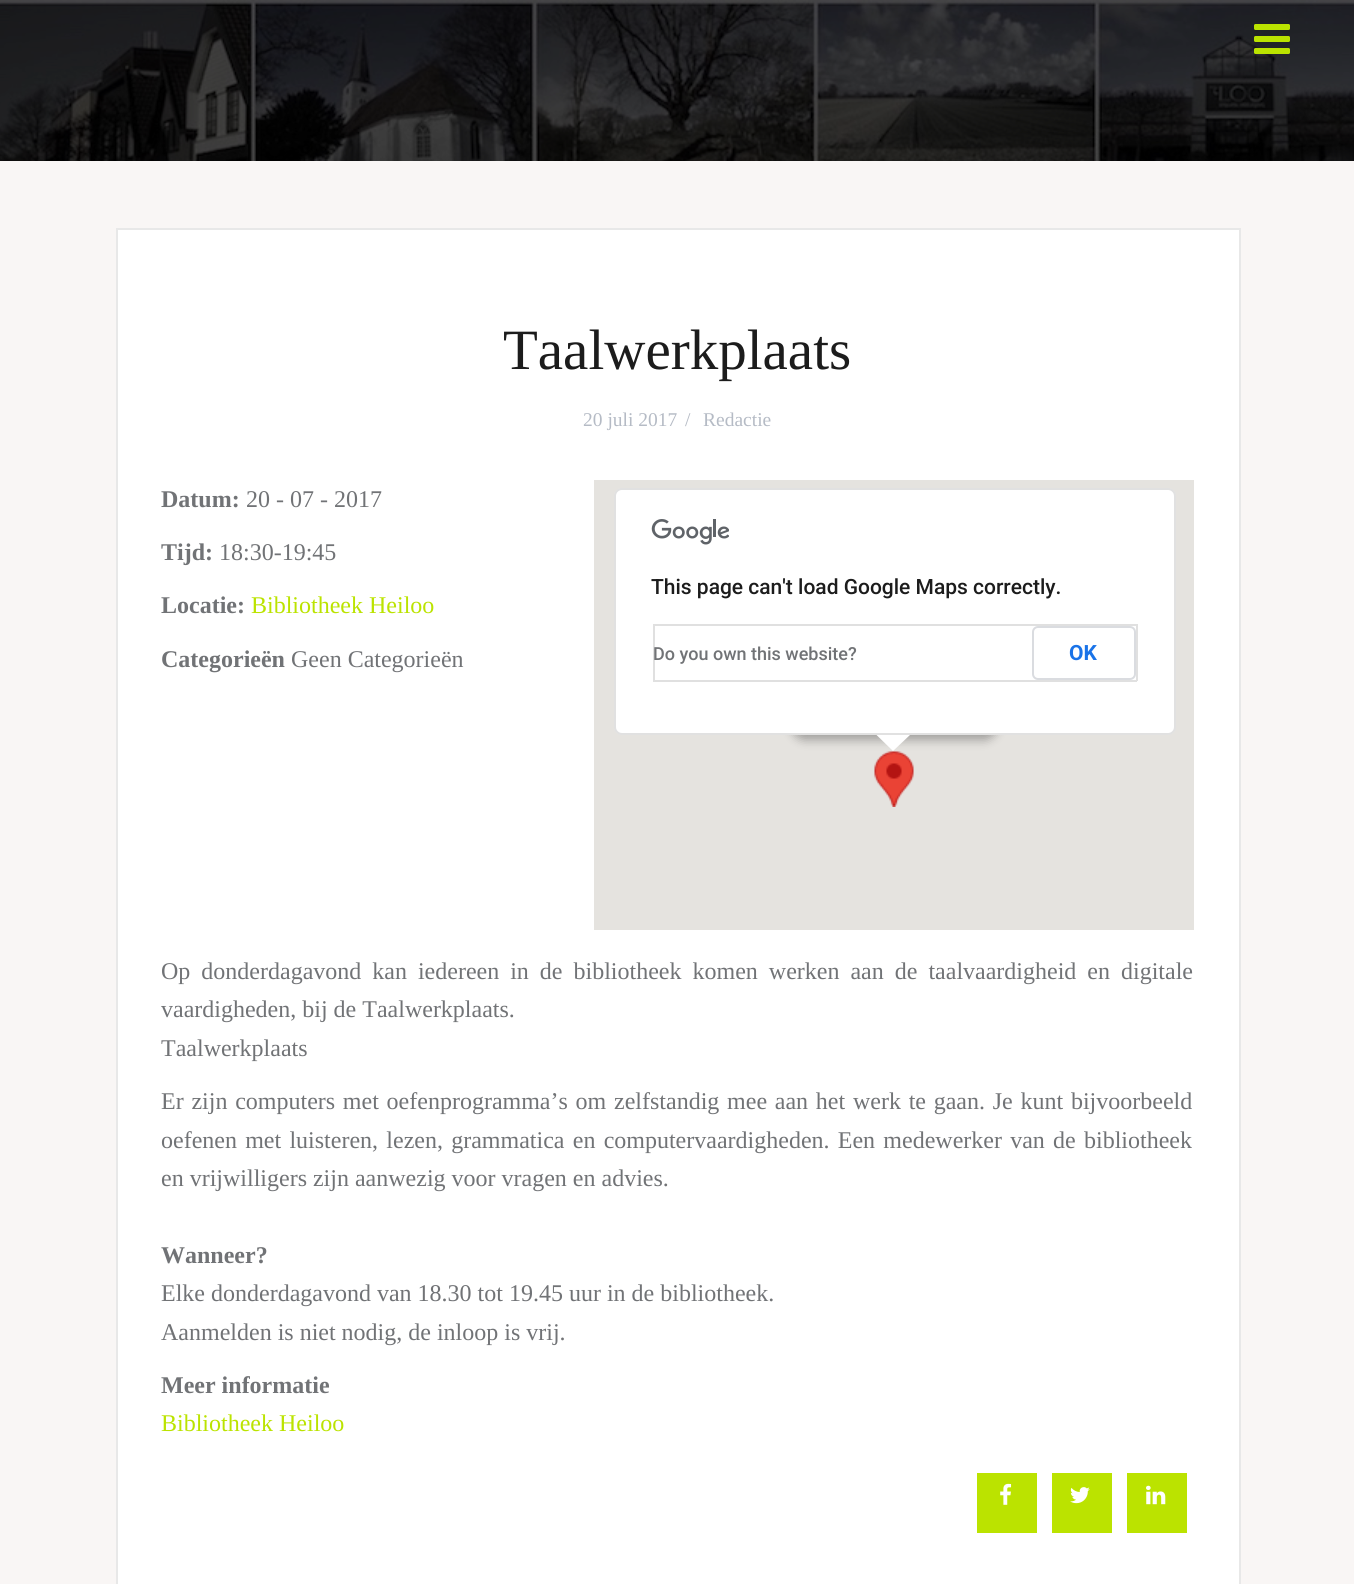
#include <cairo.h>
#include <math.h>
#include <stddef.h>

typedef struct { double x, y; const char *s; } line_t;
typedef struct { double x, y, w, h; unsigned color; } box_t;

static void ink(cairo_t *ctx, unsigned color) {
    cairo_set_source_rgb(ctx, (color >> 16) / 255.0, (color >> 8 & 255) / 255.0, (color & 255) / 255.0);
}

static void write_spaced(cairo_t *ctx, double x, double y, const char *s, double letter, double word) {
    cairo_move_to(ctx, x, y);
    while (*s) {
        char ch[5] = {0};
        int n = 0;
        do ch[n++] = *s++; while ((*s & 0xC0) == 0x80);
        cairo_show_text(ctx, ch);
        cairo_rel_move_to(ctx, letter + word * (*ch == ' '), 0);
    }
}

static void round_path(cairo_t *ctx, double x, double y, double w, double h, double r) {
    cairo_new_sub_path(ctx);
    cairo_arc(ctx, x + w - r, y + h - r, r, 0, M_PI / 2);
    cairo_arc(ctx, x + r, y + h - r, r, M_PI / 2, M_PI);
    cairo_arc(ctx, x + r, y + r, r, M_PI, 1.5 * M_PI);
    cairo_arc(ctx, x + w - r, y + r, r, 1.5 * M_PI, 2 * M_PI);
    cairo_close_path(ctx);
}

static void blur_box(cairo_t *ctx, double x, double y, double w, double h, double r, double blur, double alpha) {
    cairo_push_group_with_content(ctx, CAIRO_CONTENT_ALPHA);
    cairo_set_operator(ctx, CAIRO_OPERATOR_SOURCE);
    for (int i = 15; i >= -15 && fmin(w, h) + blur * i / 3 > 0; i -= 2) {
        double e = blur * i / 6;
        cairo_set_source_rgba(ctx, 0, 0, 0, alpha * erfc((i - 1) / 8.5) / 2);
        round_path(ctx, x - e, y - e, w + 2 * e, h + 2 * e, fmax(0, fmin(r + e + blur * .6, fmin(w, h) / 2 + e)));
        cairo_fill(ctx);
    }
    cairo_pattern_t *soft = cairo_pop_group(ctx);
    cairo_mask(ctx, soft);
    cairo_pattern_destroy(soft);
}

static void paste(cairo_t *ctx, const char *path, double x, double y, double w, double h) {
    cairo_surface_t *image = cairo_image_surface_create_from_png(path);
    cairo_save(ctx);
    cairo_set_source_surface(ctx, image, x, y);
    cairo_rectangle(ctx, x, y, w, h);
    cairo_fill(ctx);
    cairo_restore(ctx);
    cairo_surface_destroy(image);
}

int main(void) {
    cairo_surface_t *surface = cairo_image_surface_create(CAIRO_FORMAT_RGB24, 1354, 1584);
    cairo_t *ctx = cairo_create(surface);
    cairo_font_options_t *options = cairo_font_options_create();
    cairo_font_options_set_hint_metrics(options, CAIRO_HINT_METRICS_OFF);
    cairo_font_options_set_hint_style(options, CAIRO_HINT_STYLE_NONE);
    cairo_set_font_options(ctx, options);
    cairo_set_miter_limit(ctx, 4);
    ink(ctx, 0xF9F6F5);
    cairo_paint(ctx);
    paste(ctx, "media/1.png", 0, 0, 1354, 161);
    paste(ctx, "media/2.png", 1254, 24, 36, 30);
    ink(ctx, 0xFFFFFF);
    cairo_rectangle(ctx, 117, 229, 1123, 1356);
    cairo_fill_preserve(ctx);
    ink(ctx, 0xE8E8E8);
    cairo_stroke(ctx);
    cairo_select_font_face(ctx, "Liberation Serif", CAIRO_FONT_SLANT_NORMAL, CAIRO_FONT_WEIGHT_NORMAL);
    cairo_set_font_size(ctx, 57);
    ink(ctx, 0x1C1C1C);
    cairo_move_to(ctx, 503, 369);
    cairo_show_text(ctx, "Taalwerkplaats");
    cairo_set_font_size(ctx, 19.5);
    ink(ctx, 0xB5BBC5);
    {
        static const line_t items[] = {
            {583, 426, "20 juli 2017"},
            {685, 426, "/"},
            {703, 426, "Redactie"},
        };
        for (size_t i = 0; i < sizeof items / sizeof *items; i++) {
            cairo_move_to(ctx, items[i].x, items[i].y);
            cairo_show_text(ctx, items[i].s);
        }
    }
    cairo_select_font_face(ctx, "Liberation Serif", CAIRO_FONT_SLANT_NORMAL, CAIRO_FONT_WEIGHT_BOLD);
    cairo_set_font_size(ctx, 24);
    ink(ctx, 0x717376);
    cairo_move_to(ctx, 161, 507);
    cairo_show_text(ctx, "Datum:");
    cairo_select_font_face(ctx, "Liberation Serif", CAIRO_FONT_SLANT_NORMAL, CAIRO_FONT_WEIGHT_NORMAL);
    cairo_move_to(ctx, 246, 507);
    cairo_show_text(ctx, "20 - 07 - 2017");
    cairo_select_font_face(ctx, "Liberation Serif", CAIRO_FONT_SLANT_NORMAL, CAIRO_FONT_WEIGHT_BOLD);
    cairo_move_to(ctx, 161, 560);
    cairo_show_text(ctx, "Tijd:");
    cairo_select_font_face(ctx, "Liberation Serif", CAIRO_FONT_SLANT_NORMAL, CAIRO_FONT_WEIGHT_NORMAL);
    cairo_move_to(ctx, 219, 560);
    cairo_show_text(ctx, "18:30-19:45");
    cairo_select_font_face(ctx, "Liberation Serif", CAIRO_FONT_SLANT_NORMAL, CAIRO_FONT_WEIGHT_BOLD);
    cairo_move_to(ctx, 161, 613);
    cairo_show_text(ctx, "Locatie:");
    cairo_select_font_face(ctx, "Liberation Serif", CAIRO_FONT_SLANT_NORMAL, CAIRO_FONT_WEIGHT_NORMAL);
    ink(ctx, 0xBBE300);
    cairo_move_to(ctx, 251, 613);
    cairo_show_text(ctx, "Bibliotheek Heiloo");
    ink(ctx, 0xE5E3DF);
    cairo_rectangle(ctx, 594, 480, 600, 450);
    cairo_fill(ctx);
    paste(ctx, "media/3.png", 874, 751, 40, 56);
    ink(ctx, 0x000000);
    blur_box(ctx, 791, 572, 207, 168, 14, 5, 0.3);
    ink(ctx, 0xFFFFFF);
    cairo_new_path(ctx);
    cairo_move_to(ctx, 876, 734);
    cairo_line_to(ctx, 876, 734.5);
    cairo_line_to(ctx, 893, 751);
    cairo_line_to(ctx, 911, 734);
    cairo_close_path(ctx);
    cairo_fill(ctx);
    round_path(ctx, 614, 488, 562, 247, 8);
    cairo_fill(ctx);
    round_path(ctx, 615, 489, 560, 245, 7);
    cairo_set_source_rgba(ctx, 0, 0, 0, 0.12);
    cairo_stroke(ctx);
    paste(ctx, "media/4.png", 651, 519, 78, 26);
    cairo_select_font_face(ctx, "Roboto Medium", CAIRO_FONT_SLANT_NORMAL, CAIRO_FONT_WEIGHT_NORMAL);
    cairo_set_font_size(ctx, 21);
    ink(ctx, 0x1C1C1C);
    cairo_move_to(ctx, 651, 594);
    cairo_show_text(ctx, "This page can't load Google Maps correctly.");
    {
        static const box_t items[] = {
            {653, 624, 484, 2, 0xE0E0E0},
            {1136, 624, 2, 57, 0xE0E0E0},
            {653, 680, 484, 2, 0xE0E0E0},
            {653, 624, 2, 57, 0xE0E0E0},
        };
        for (size_t i = 0; i < sizeof items / sizeof *items; i++) {
            ink(ctx, items[i].color);
            cairo_rectangle(ctx, items[i].x, items[i].y, items[i].w, items[i].h);
            cairo_fill(ctx);
        }
    }
    cairo_set_font_size(ctx, 18);
    ink(ctx, 0x717376);
    cairo_move_to(ctx, 653, 660);
    cairo_show_text(ctx, "Do you own this website?");
    round_path(ctx, 1033, 627, 102, 52, 5);
    ink(ctx, 0xDADCE0);
    cairo_stroke(ctx);
    cairo_select_font_face(ctx, "Roboto", CAIRO_FONT_SLANT_NORMAL, CAIRO_FONT_WEIGHT_BOLD);
    cairo_set_font_size(ctx, 21);
    ink(ctx, 0x1A73E8);
    cairo_move_to(ctx, 1069, 660);
    cairo_show_text(ctx, "OK");
    cairo_select_font_face(ctx, "Liberation Serif", CAIRO_FONT_SLANT_NORMAL, CAIRO_FONT_WEIGHT_BOLD);
    cairo_set_font_size(ctx, 24);
    ink(ctx, 0x717376);
    cairo_move_to(ctx, 161, 667);
    cairo_show_text(ctx, "Categorieën");
    cairo_select_font_face(ctx, "Liberation Serif", CAIRO_FONT_SLANT_NORMAL, CAIRO_FONT_WEIGHT_NORMAL);
    cairo_move_to(ctx, 291, 667);
    cairo_show_text(ctx, "Geen Categorieën");
    write_spaced(ctx, 161, 979, "Op donderdagavond kan iedereen in de bibliotheek komen werken aan de taalvaardigheid en digitale", 0, 5);
    cairo_move_to(ctx, 161, 1017);
    cairo_show_text(ctx, "vaardigheden, bij de Taalwerkplaats.");
    cairo_move_to(ctx, 161, 1056);
    cairo_show_text(ctx, "Taalwerkplaats");
    write_spaced(ctx, 161, 1109, "Er zijn computers met oefenprogramma’s om zelfstandig mee aan het werk te gaan. Je kunt bijvoorbeeld", 0, 1.75);
    write_spaced(ctx, 161, 1148, "oefenen met luisteren, lezen, grammatica en computervaardigheden. Een medewerker van de bibliotheek", 0, 2.25);
    cairo_move_to(ctx, 161, 1186);
    cairo_show_text(ctx, "en vrijwilligers zijn aanwezig voor vragen en advies.");
    cairo_select_font_face(ctx, "Liberation Serif", CAIRO_FONT_SLANT_NORMAL, CAIRO_FONT_WEIGHT_BOLD);
    cairo_move_to(ctx, 161, 1263);
    cairo_show_text(ctx, "Wanneer?");
    cairo_select_font_face(ctx, "Liberation Serif", CAIRO_FONT_SLANT_NORMAL, CAIRO_FONT_WEIGHT_NORMAL);
    cairo_move_to(ctx, 161, 1301);
    cairo_show_text(ctx, "Elke donderdagavond van 18.30 tot 19.45 uur in de bibliotheek.");
    cairo_move_to(ctx, 161, 1340);
    cairo_show_text(ctx, "Aanmelden is niet nodig, de inloop is vrij.");
    cairo_select_font_face(ctx, "Liberation Serif", CAIRO_FONT_SLANT_NORMAL, CAIRO_FONT_WEIGHT_BOLD);
    cairo_move_to(ctx, 161, 1393);
    cairo_show_text(ctx, "Meer informatie");
    cairo_select_font_face(ctx, "Liberation Serif", CAIRO_FONT_SLANT_NORMAL, CAIRO_FONT_WEIGHT_NORMAL);
    ink(ctx, 0xBBE300);
    cairo_move_to(ctx, 161, 1431);
    cairo_show_text(ctx, "Bibliotheek Heiloo");
    cairo_rectangle(ctx, 977, 1473, 60, 60);
    cairo_fill(ctx);
    paste(ctx, "media/5.png", 1000, 1483, 12, 22);
    cairo_rectangle(ctx, 1052, 1473, 60, 60);
    cairo_fill(ctx);
    paste(ctx, "media/6.png", 1070, 1487, 20, 17);
    cairo_rectangle(ctx, 1127, 1473, 60, 60);
    cairo_fill(ctx);
    paste(ctx, "media/7.png", 1146, 1485, 20, 20);
    cairo_surface_write_to_png(surface, "image.png");
    cairo_font_options_destroy(options);
    cairo_destroy(ctx);
    cairo_surface_destroy(surface);
    return 0;
}
